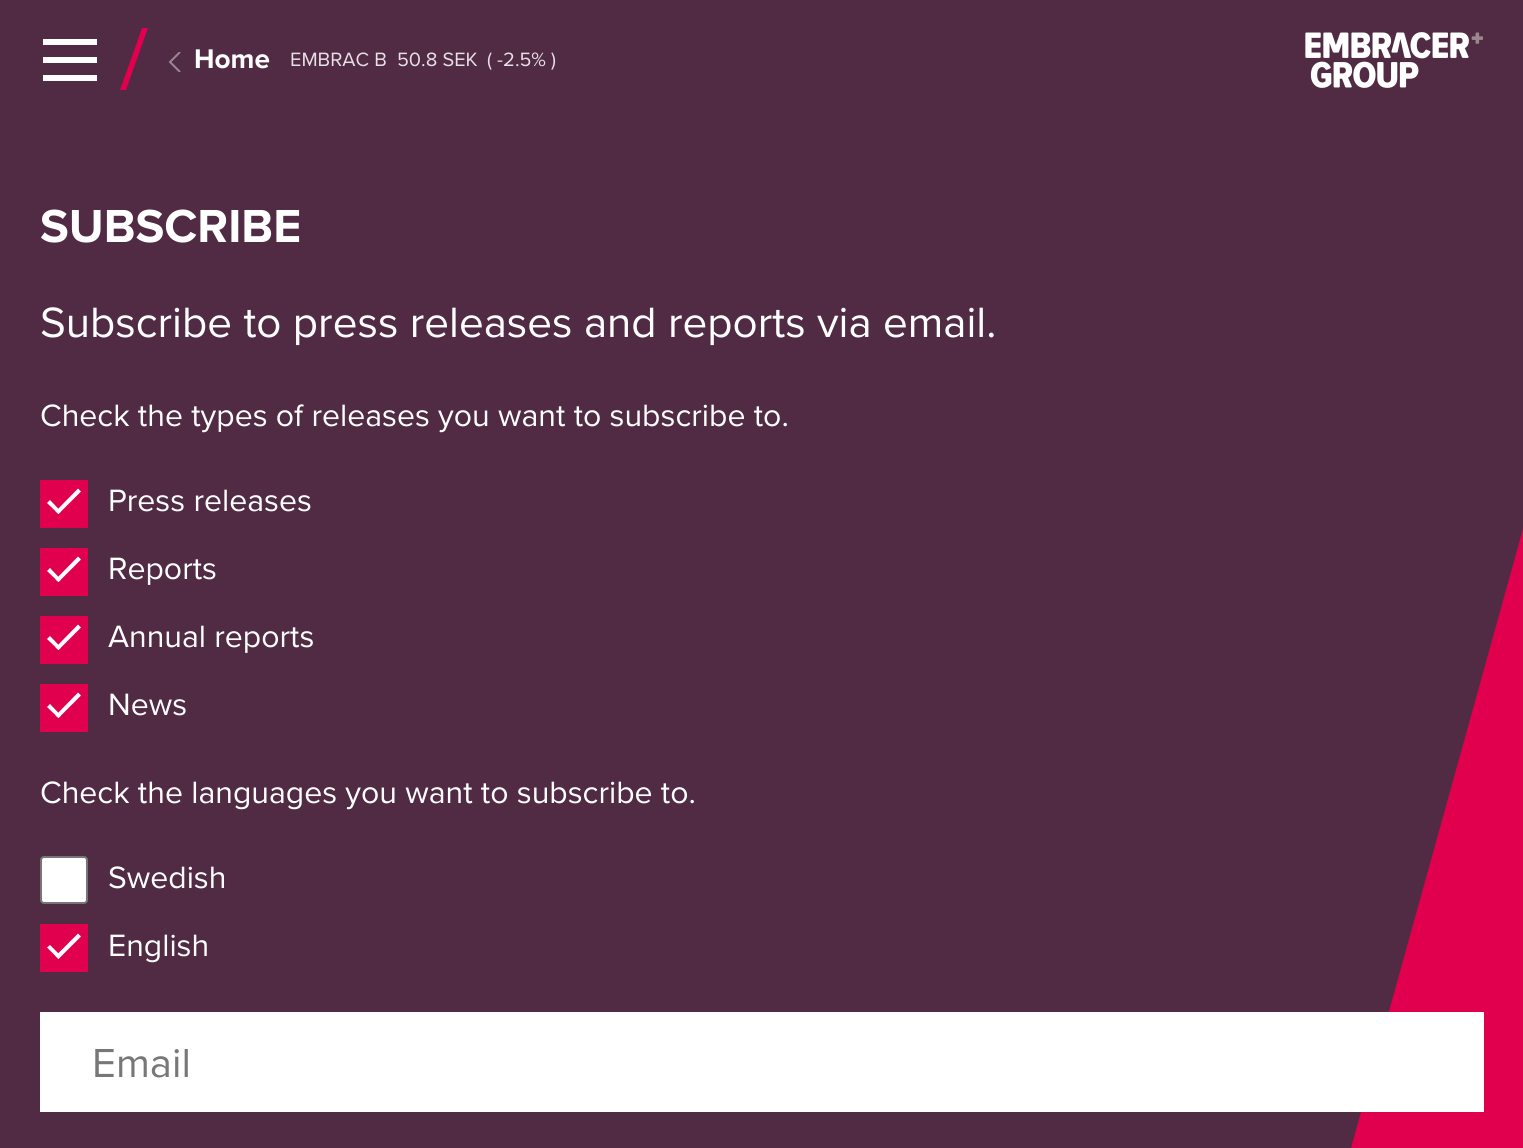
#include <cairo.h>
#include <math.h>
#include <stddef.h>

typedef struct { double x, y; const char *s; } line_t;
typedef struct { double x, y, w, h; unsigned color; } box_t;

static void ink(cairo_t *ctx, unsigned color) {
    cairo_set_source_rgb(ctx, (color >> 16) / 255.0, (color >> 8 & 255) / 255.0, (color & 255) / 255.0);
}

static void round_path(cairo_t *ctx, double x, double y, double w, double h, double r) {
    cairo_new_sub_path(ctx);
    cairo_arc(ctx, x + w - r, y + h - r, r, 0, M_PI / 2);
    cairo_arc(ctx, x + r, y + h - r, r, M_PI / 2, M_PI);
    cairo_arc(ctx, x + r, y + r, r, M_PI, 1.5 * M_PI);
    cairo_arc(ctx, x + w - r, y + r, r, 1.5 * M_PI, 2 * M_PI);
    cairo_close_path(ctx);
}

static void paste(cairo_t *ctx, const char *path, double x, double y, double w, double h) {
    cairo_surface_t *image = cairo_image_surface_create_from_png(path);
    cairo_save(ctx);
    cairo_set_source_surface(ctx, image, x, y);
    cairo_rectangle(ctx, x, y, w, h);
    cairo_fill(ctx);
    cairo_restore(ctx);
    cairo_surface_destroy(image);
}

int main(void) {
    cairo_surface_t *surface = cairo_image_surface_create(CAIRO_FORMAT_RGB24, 1523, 1148);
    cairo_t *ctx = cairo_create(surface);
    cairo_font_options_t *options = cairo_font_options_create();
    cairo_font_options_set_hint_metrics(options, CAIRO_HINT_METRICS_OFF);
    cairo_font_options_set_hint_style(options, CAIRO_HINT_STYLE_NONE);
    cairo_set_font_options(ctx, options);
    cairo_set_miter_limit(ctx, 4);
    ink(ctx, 0x512A44);
    cairo_paint(ctx);
    {
        static const box_t items[] = {
            {43, 39, 54, 6, 0xFFFFFF},
            {43, 57, 54, 6, 0xFFFFFF},
            {43, 75, 54, 6, 0xFFFFFF},
        };
        for (size_t i = 0; i < sizeof items / sizeof *items; i++) {
            ink(ctx, items[i].color);
            cairo_rectangle(ctx, items[i].x, items[i].y, items[i].w, items[i].h);
            cairo_fill(ctx);
        }
    }
    ink(ctx, 0xE0004D);
    cairo_set_fill_rule(ctx, CAIRO_FILL_RULE_EVEN_ODD);
    cairo_new_path(ctx);
    cairo_move_to(ctx, 142, 28);
    cairo_line_to(ctx, 148, 28);
    cairo_line_to(ctx, 126, 90);
    cairo_line_to(ctx, 120, 90);
    cairo_close_path(ctx);
    cairo_fill(ctx);
    cairo_save(ctx);
    cairo_set_fill_rule(ctx, CAIRO_FILL_RULE_WINDING);
    cairo_rectangle(ctx, 168, 52, 14, 20);
    cairo_clip(ctx);
    cairo_new_path(ctx);
    cairo_move_to(ctx, 180, 52);
    cairo_line_to(ctx, 170, 62);
    cairo_line_to(ctx, 180, 72);
    ink(ctx, 0x9A8790);
    cairo_stroke(ctx);
    cairo_restore(ctx);
    cairo_select_font_face(ctx, "Proxima Nova", CAIRO_FONT_SLANT_NORMAL, CAIRO_FONT_WEIGHT_BOLD);
    cairo_set_font_size(ctx, 28);
    ink(ctx, 0xFFFFFF);
    cairo_move_to(ctx, 194, 68);
    cairo_show_text(ctx, "Home");
    cairo_select_font_face(ctx, "Proxima Nova", CAIRO_FONT_SLANT_NORMAL, CAIRO_FONT_WEIGHT_NORMAL);
    cairo_set_font_size(ctx, 20);
    ink(ctx, 0xE7E0E7);
    {
        static const line_t items[] = {
            {290, 66, "EMBRAC B"},
            {397, 66, "50.8 SEK"},
            {487, 66, "( -2.5% )"},
        };
        for (size_t i = 0; i < sizeof items / sizeof *items; i++) {
            cairo_move_to(ctx, items[i].x, items[i].y);
            cairo_show_text(ctx, items[i].s);
        }
    }
    paste(ctx, "media/1.png", 1305, 32, 178, 56);
    ink(ctx, 0xE0004D);
    cairo_new_path(ctx);
    cairo_move_to(ctx, 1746, -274);
    cairo_line_to(ctx, 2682, -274);
    cairo_line_to(ctx, 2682, 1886);
    cairo_line_to(ctx, 1146, 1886);
    cairo_close_path(ctx);
    cairo_fill(ctx);
    cairo_select_font_face(ctx, "Proxima Nova", CAIRO_FONT_SLANT_NORMAL, CAIRO_FONT_WEIGHT_BOLD);
    cairo_set_font_size(ctx, 48);
    ink(ctx, 0xFFFFFF);
    cairo_move_to(ctx, 40, 242);
    cairo_show_text(ctx, "SUBSCRIBE");
    cairo_select_font_face(ctx, "Proxima Nova", CAIRO_FONT_SLANT_NORMAL, CAIRO_FONT_WEIGHT_NORMAL);
    cairo_set_font_size(ctx, 44);
    cairo_move_to(ctx, 40, 337);
    cairo_show_text(ctx, "Subscribe to press releases and reports via email.");
    cairo_set_font_size(ctx, 32);
    cairo_move_to(ctx, 40, 426);
    cairo_show_text(ctx, "Check the types of releases you want to subscribe to.");
    ink(ctx, 0xE0004D);
    cairo_rectangle(ctx, 40, 480, 48, 48);
    cairo_fill(ctx);
    ink(ctx, 0xFFFFFF);
    cairo_set_fill_rule(ctx, CAIRO_FILL_RULE_WINDING);
    cairo_new_path(ctx);
    cairo_move_to(ctx, 55.5, 511.5);
    cairo_line_to(ctx, 78, 488.5);
    cairo_line_to(ctx, 81, 491.5);
    cairo_line_to(ctx, 58.5, 514);
    cairo_close_path(ctx);
    cairo_fill(ctx);
    cairo_new_path(ctx);
    cairo_move_to(ctx, 47, 503);
    cairo_line_to(ctx, 50, 500);
    cairo_line_to(ctx, 61, 511.5);
    cairo_line_to(ctx, 58.5, 514);
    cairo_close_path(ctx);
    cairo_fill(ctx);
    cairo_move_to(ctx, 108, 511);
    cairo_show_text(ctx, "Press releases");
    ink(ctx, 0xE0004D);
    cairo_rectangle(ctx, 40, 548, 48, 48);
    cairo_fill(ctx);
    ink(ctx, 0xFFFFFF);
    cairo_new_path(ctx);
    cairo_move_to(ctx, 55.5, 579.5);
    cairo_line_to(ctx, 78, 556.5);
    cairo_line_to(ctx, 81, 559.5);
    cairo_line_to(ctx, 58.5, 582);
    cairo_close_path(ctx);
    cairo_fill(ctx);
    cairo_new_path(ctx);
    cairo_move_to(ctx, 47, 571);
    cairo_line_to(ctx, 50, 568);
    cairo_line_to(ctx, 61, 579.5);
    cairo_line_to(ctx, 58.5, 582);
    cairo_close_path(ctx);
    cairo_fill(ctx);
    cairo_move_to(ctx, 108, 579);
    cairo_show_text(ctx, "Reports");
    ink(ctx, 0xE0004D);
    cairo_rectangle(ctx, 40, 616, 48, 48);
    cairo_fill(ctx);
    ink(ctx, 0xFFFFFF);
    cairo_new_path(ctx);
    cairo_move_to(ctx, 55.5, 647.5);
    cairo_line_to(ctx, 78, 624.5);
    cairo_line_to(ctx, 81, 627.5);
    cairo_line_to(ctx, 58.5, 650);
    cairo_close_path(ctx);
    cairo_fill(ctx);
    cairo_new_path(ctx);
    cairo_move_to(ctx, 47, 639);
    cairo_line_to(ctx, 50, 636);
    cairo_line_to(ctx, 61, 647.5);
    cairo_line_to(ctx, 58.5, 650);
    cairo_close_path(ctx);
    cairo_fill(ctx);
    cairo_move_to(ctx, 108, 647);
    cairo_show_text(ctx, "Annual reports");
    ink(ctx, 0xE0004D);
    cairo_rectangle(ctx, 40, 684, 48, 48);
    cairo_fill(ctx);
    ink(ctx, 0xFFFFFF);
    cairo_new_path(ctx);
    cairo_move_to(ctx, 55.5, 715.5);
    cairo_line_to(ctx, 78, 692.5);
    cairo_line_to(ctx, 81, 695.5);
    cairo_line_to(ctx, 58.5, 718);
    cairo_close_path(ctx);
    cairo_fill(ctx);
    cairo_new_path(ctx);
    cairo_move_to(ctx, 47, 707);
    cairo_line_to(ctx, 50, 704);
    cairo_line_to(ctx, 61, 715.5);
    cairo_line_to(ctx, 58.5, 718);
    cairo_close_path(ctx);
    cairo_fill(ctx);
    cairo_move_to(ctx, 108, 715);
    cairo_show_text(ctx, "News");
    cairo_move_to(ctx, 40, 803);
    cairo_show_text(ctx, "Check the languages you want to subscribe to.");
    round_path(ctx, 41, 857, 46, 46, 3);
    cairo_fill_preserve(ctx);
    ink(ctx, 0x767676);
    cairo_stroke(ctx);
    ink(ctx, 0xFFFFFF);
    cairo_move_to(ctx, 108, 888);
    cairo_show_text(ctx, "Swedish");
    ink(ctx, 0xE0004D);
    cairo_rectangle(ctx, 40, 924, 48, 48);
    cairo_fill(ctx);
    ink(ctx, 0xFFFFFF);
    cairo_new_path(ctx);
    cairo_move_to(ctx, 55.5, 956);
    cairo_line_to(ctx, 78, 933.5);
    cairo_line_to(ctx, 81, 936.5);
    cairo_line_to(ctx, 58.5, 959);
    cairo_close_path(ctx);
    cairo_fill(ctx);
    cairo_new_path(ctx);
    cairo_move_to(ctx, 47, 947.5);
    cairo_line_to(ctx, 50, 945);
    cairo_line_to(ctx, 61, 956);
    cairo_line_to(ctx, 58.5, 959);
    cairo_close_path(ctx);
    cairo_fill(ctx);
    cairo_move_to(ctx, 108, 956);
    cairo_show_text(ctx, "English");
    cairo_rectangle(ctx, 40, 1012, 1444, 100);
    cairo_fill(ctx);
    cairo_set_font_size(ctx, 42);
    ink(ctx, 0x777777);
    cairo_move_to(ctx, 92, 1077);
    cairo_show_text(ctx, "Email");
    cairo_surface_write_to_png(surface, "image.png");
    cairo_font_options_destroy(options);
    cairo_destroy(ctx);
    cairo_surface_destroy(surface);
    return 0;
}
